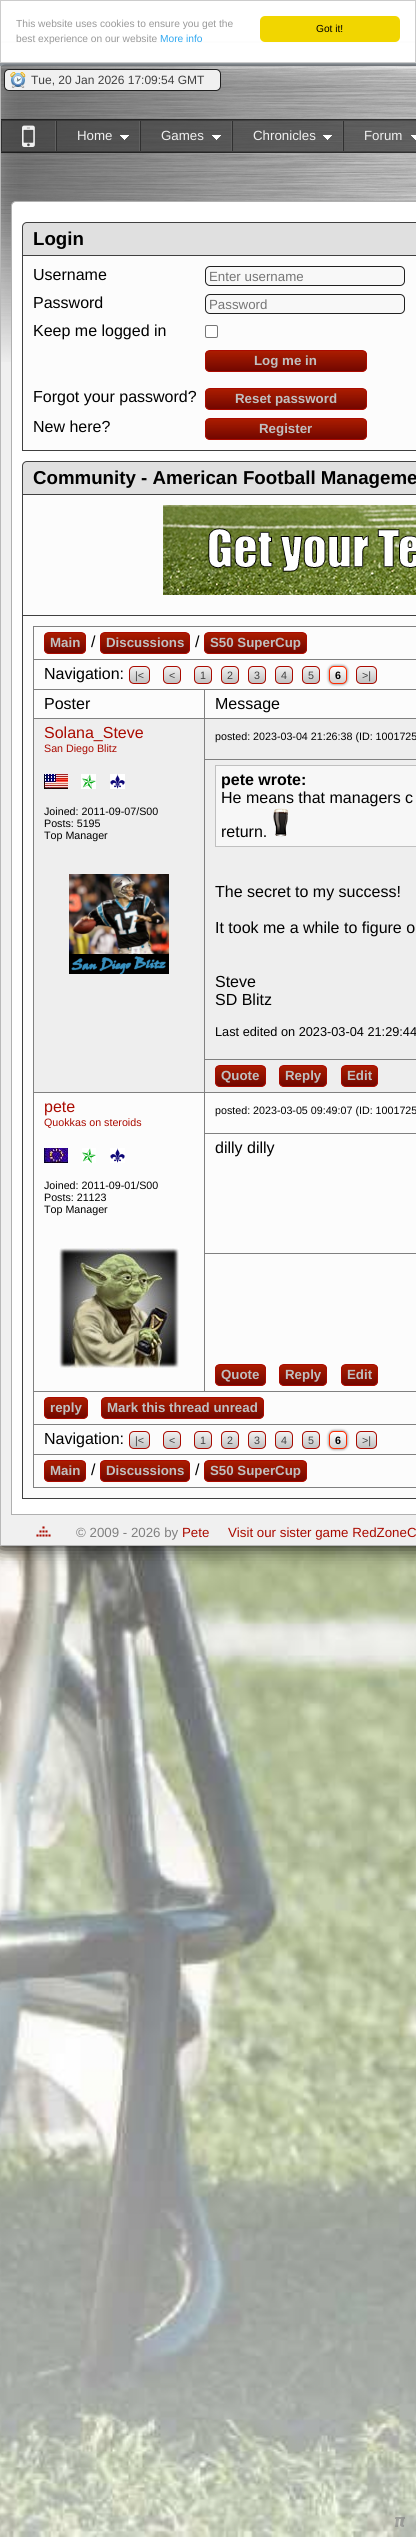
#include <cairo.h>
#include <math.h>
#include <stddef.h>

typedef struct { double x, y; const char *s; } line_t;
typedef struct { double x, y, w, h; unsigned color; } box_t;

static void ink(cairo_t *ctx, unsigned color) {
    cairo_set_source_rgb(ctx, (color >> 16) / 255.0, (color >> 8 & 255) / 255.0, (color & 255) / 255.0);
}

static void round_path(cairo_t *ctx, double x, double y, double w, double h, double r) {
    cairo_new_sub_path(ctx);
    cairo_arc(ctx, x + w - r, y + h - r, r, 0, M_PI / 2);
    cairo_arc(ctx, x + r, y + h - r, r, M_PI / 2, M_PI);
    cairo_arc(ctx, x + r, y + r, r, M_PI, 1.5 * M_PI);
    cairo_arc(ctx, x + w - r, y + r, r, 1.5 * M_PI, 2 * M_PI);
    cairo_close_path(ctx);
}

static void blur_box(cairo_t *ctx, double x, double y, double w, double h, double r, double blur, double alpha) {
    cairo_push_group_with_content(ctx, CAIRO_CONTENT_ALPHA);
    cairo_set_operator(ctx, CAIRO_OPERATOR_SOURCE);
    for (int i = 15; i >= -15 && fmin(w, h) + blur * i / 3 > 0; i -= 2) {
        double e = blur * i / 6;
        cairo_set_source_rgba(ctx, 0, 0, 0, alpha * erfc((i - 1) / 8.5) / 2);
        round_path(ctx, x - e, y - e, w + 2 * e, h + 2 * e, fmax(0, fmin(r + e + blur * .6, fmin(w, h) / 2 + e)));
        cairo_fill(ctx);
    }
    cairo_pattern_t *soft = cairo_pop_group(ctx);
    cairo_mask(ctx, soft);
    cairo_pattern_destroy(soft);
}

static void paste(cairo_t *ctx, const char *path, double x, double y, double w, double h) {
    cairo_surface_t *image = cairo_image_surface_create_from_png(path);
    cairo_save(ctx);
    cairo_set_source_surface(ctx, image, x, y);
    cairo_rectangle(ctx, x, y, w, h);
    cairo_fill(ctx);
    cairo_restore(ctx);
    cairo_surface_destroy(image);
}

int main(void) {
    cairo_surface_t *surface = cairo_image_surface_create(CAIRO_FORMAT_RGB24, 416, 2537);
    cairo_t *ctx = cairo_create(surface);
    cairo_font_options_t *options = cairo_font_options_create();
    cairo_font_options_set_hint_metrics(options, CAIRO_HINT_METRICS_OFF);
    cairo_font_options_set_hint_style(options, CAIRO_HINT_STYLE_NONE);
    cairo_set_font_options(ctx, options);
    cairo_set_miter_limit(ctx, 4);
    ink(ctx, 0xFFFFFF);
    cairo_paint(ctx);
    paste(ctx, "media/1.png", 0, 63, 416, 2474);
    ink(ctx, 0x000000);
    blur_box(ctx, 0, 66, 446, 1480, 0, 10, 1);
    ink(ctx, 0xFFFFFF);
    cairo_rectangle(ctx, 1, 43, 414, 19);
    cairo_fill(ctx);
    cairo_rectangle(ctx, 0.5, 0.5, 415, 62);
    ink(ctx, 0xCCCCCC);
    cairo_set_line_width(ctx, 1);
    cairo_stroke(ctx);
    cairo_select_font_face(ctx, "Liberation Sans", CAIRO_FONT_SLANT_NORMAL, CAIRO_FONT_WEIGHT_NORMAL);
    cairo_set_font_size(ctx, 10.2);
    ink(ctx, 0x999999);
    cairo_move_to(ctx, 16, 27);
    cairo_show_text(ctx, "This website uses cookies to ensure you get the");
    cairo_move_to(ctx, 16, 42);
    cairo_show_text(ctx, "best experience on our website");
    ink(ctx, 0x31A8F0);
    cairo_move_to(ctx, 160, 42);
    cairo_show_text(ctx, "More info");
    ink(ctx, 0xF1D600);
    round_path(ctx, 260, 16, 140, 26, 5);
    cairo_fill(ctx);
    ink(ctx, 0x000000);
    cairo_move_to(ctx, 316, 32);
    cairo_show_text(ctx, "Got it!");
    ink(ctx, 0xB9B9B9);
    cairo_rectangle(ctx, 0, 1545, 416, 1);
    cairo_fill(ctx);
    cairo_rectangle(ctx, 0, 66, 1, 1480);
    cairo_fill(ctx);
    paste(ctx, "media/2.png", 1, 66, 415, 130);
    ink(ctx, 0xF0F0F0);
    round_path(ctx, 4.5, 69.5, 216, 21, 4.5);
    cairo_fill_preserve(ctx);
    ink(ctx, 0x202020);
    cairo_stroke(ctx);
    paste(ctx, "media/3.png", 10, 72, 16, 16);
    cairo_set_font_size(ctx, 12);
    ink(ctx, 0x404040);
    cairo_move_to(ctx, 31, 84);
    cairo_show_text(ctx, "Tue, 20 Jan 2026 17:09:54 GMT");
    ink(ctx, 0x606060);
    cairo_rectangle(ctx, 55, 121, 1, 30);
    cairo_fill(ctx);
    ink(ctx, 0x303030);
    cairo_rectangle(ctx, 1, 121, 1, 30);
    cairo_fill(ctx);
    paste(ctx, "media/4.png", 22, 125, 13, 22);
    ink(ctx, 0x606060);
    cairo_rectangle(ctx, 139, 121, 1, 30);
    cairo_fill(ctx);
    ink(ctx, 0x303030);
    cairo_rectangle(ctx, 56, 121, 1, 30);
    cairo_fill(ctx);
    cairo_set_font_size(ctx, 13.3);
    ink(ctx, 0xF0F0F0);
    cairo_move_to(ctx, 77, 140);
    cairo_show_text(ctx, "Home");
    paste(ctx, "media/5.png", 120, 135, 9, 5);
    ink(ctx, 0x606060);
    cairo_rectangle(ctx, 231, 121, 1, 30);
    cairo_fill(ctx);
    ink(ctx, 0x303030);
    cairo_rectangle(ctx, 140, 121, 1, 30);
    cairo_fill(ctx);
    ink(ctx, 0xF0F0F0);
    cairo_move_to(ctx, 161, 140);
    cairo_show_text(ctx, "Games");
    paste(ctx, "media/6.png", 212, 135, 9, 5);
    ink(ctx, 0x606060);
    cairo_rectangle(ctx, 342, 121, 1, 30);
    cairo_fill(ctx);
    ink(ctx, 0x303030);
    cairo_rectangle(ctx, 232, 121, 1, 30);
    cairo_fill(ctx);
    ink(ctx, 0xF0F0F0);
    cairo_move_to(ctx, 253, 140);
    cairo_show_text(ctx, "Chronicles");
    paste(ctx, "media/7.png", 323, 135, 9, 5);
    ink(ctx, 0x303030);
    cairo_rectangle(ctx, 343, 121, 1, 30);
    cairo_fill(ctx);
    ink(ctx, 0xF0F0F0);
    cairo_move_to(ctx, 364, 140);
    cairo_show_text(ctx, "Forum");
    paste(ctx, "media/8.png", 411, 135, 5, 5);
    cairo_rectangle(ctx, 1, 362, 415, 1183);
    cairo_fill(ctx);
    paste(ctx, "media/9.png", 1, 196, 415, 166);
    ink(ctx, 0xFFFFFF);
    cairo_new_path(ctx);
    cairo_move_to(ctx, 16, 201.5);
    cairo_line_to(ctx, 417, 201.5);
    cairo_curve_to(ctx, 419.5, 201.5, 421.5, 203.5, 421.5, 206);
    cairo_line_to(ctx, 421.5, 1514.5);
    cairo_line_to(ctx, 11.5, 1514.5);
    cairo_line_to(ctx, 11.5, 206);
    cairo_curve_to(ctx, 11.5, 203.5, 13.5, 201.5, 16, 201.5);
    cairo_close_path(ctx);
    cairo_fill_preserve(ctx);
    ink(ctx, 0xB0B0B0);
    cairo_stroke(ctx);
    ink(ctx, 0xFCFCFC);
    cairo_rectangle(ctx, 22.5, 255.5, 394, 195);
    cairo_fill_preserve(ctx);
    ink(ctx, 0x404040);
    cairo_stroke(ctx);
    ink(ctx, 0xE0E0E0);
    cairo_new_path(ctx);
    cairo_move_to(ctx, 27, 222.5);
    cairo_line_to(ctx, 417, 222.5);
    cairo_curve_to(ctx, 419.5, 222.5, 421.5, 224.5, 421.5, 227);
    cairo_line_to(ctx, 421.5, 255.5);
    cairo_line_to(ctx, 22.5, 255.5);
    cairo_line_to(ctx, 22.5, 227);
    cairo_curve_to(ctx, 22.5, 224.5, 24.5, 222.5, 27, 222.5);
    cairo_close_path(ctx);
    cairo_fill_preserve(ctx);
    ink(ctx, 0x404040);
    cairo_stroke(ctx);
    cairo_select_font_face(ctx, "Liberation Sans", CAIRO_FONT_SLANT_NORMAL, CAIRO_FONT_WEIGHT_BOLD);
    cairo_set_font_size(ctx, 18.7);
    ink(ctx, 0x000000);
    cairo_move_to(ctx, 33, 245);
    cairo_show_text(ctx, "Login");
    cairo_select_font_face(ctx, "Liberation Sans", CAIRO_FONT_SLANT_NORMAL, CAIRO_FONT_WEIGHT_NORMAL);
    cairo_set_font_size(ctx, 16);
    cairo_move_to(ctx, 33, 280);
    cairo_show_text(ctx, "Username");
    ink(ctx, 0xF8F8F8);
    round_path(ctx, 205.5, 266.5, 199, 19, 4.5);
    cairo_fill_preserve(ctx);
    ink(ctx, 0x202020);
    cairo_stroke(ctx);
    cairo_set_font_size(ctx, 13.3);
    ink(ctx, 0x757575);
    cairo_move_to(ctx, 209, 281);
    cairo_show_text(ctx, "Enter username");
    cairo_set_font_size(ctx, 16);
    ink(ctx, 0x000000);
    cairo_move_to(ctx, 33, 308);
    cairo_show_text(ctx, "Password");
    ink(ctx, 0xF8F8F8);
    round_path(ctx, 205.5, 294.5, 199, 19, 4.5);
    cairo_fill_preserve(ctx);
    ink(ctx, 0x202020);
    cairo_stroke(ctx);
    cairo_set_font_size(ctx, 13.3);
    ink(ctx, 0x757575);
    cairo_move_to(ctx, 209, 309);
    cairo_show_text(ctx, "Password");
    cairo_set_font_size(ctx, 16);
    ink(ctx, 0x000000);
    cairo_move_to(ctx, 33, 336);
    cairo_show_text(ctx, "Keep me logged in");
    ink(ctx, 0xFFFFFF);
    round_path(ctx, 205.5, 325.5, 12, 12, 1.5);
    cairo_fill_preserve(ctx);
    ink(ctx, 0x767676);
    cairo_stroke(ctx);
    paste(ctx, "media/10.png", 205, 351, 162, 21);
    round_path(ctx, 205.5, 350.5, 161, 21, 4.5);
    ink(ctx, 0xAA0A00);
    cairo_stroke(ctx);
    cairo_select_font_face(ctx, "Liberation Sans", CAIRO_FONT_SLANT_NORMAL, CAIRO_FONT_WEIGHT_BOLD);
    cairo_set_font_size(ctx, 13.3);
    ink(ctx, 0xC0C0C0);
    cairo_move_to(ctx, 254, 365);
    cairo_show_text(ctx, "Log me in");
    cairo_select_font_face(ctx, "Liberation Sans", CAIRO_FONT_SLANT_NORMAL, CAIRO_FONT_WEIGHT_NORMAL);
    cairo_set_font_size(ctx, 16);
    ink(ctx, 0x000000);
    cairo_move_to(ctx, 33, 402);
    cairo_show_text(ctx, "Forgot your password?");
    paste(ctx, "media/10.png", 205, 389, 162, 21);
    round_path(ctx, 205.5, 388.5, 161, 21, 4.5);
    ink(ctx, 0xAA0A00);
    cairo_stroke(ctx);
    cairo_select_font_face(ctx, "Liberation Sans", CAIRO_FONT_SLANT_NORMAL, CAIRO_FONT_WEIGHT_BOLD);
    cairo_set_font_size(ctx, 13.3);
    ink(ctx, 0xC0C0C0);
    cairo_move_to(ctx, 235, 403);
    cairo_show_text(ctx, "Reset password");
    cairo_select_font_face(ctx, "Liberation Sans", CAIRO_FONT_SLANT_NORMAL, CAIRO_FONT_WEIGHT_NORMAL);
    cairo_set_font_size(ctx, 16);
    ink(ctx, 0x000000);
    cairo_move_to(ctx, 33, 432);
    cairo_show_text(ctx, "New here?");
    paste(ctx, "media/10.png", 205, 419, 162, 21);
    round_path(ctx, 205.5, 418.5, 161, 21, 4.5);
    ink(ctx, 0xAA0A00);
    cairo_stroke(ctx);
    cairo_select_font_face(ctx, "Liberation Sans", CAIRO_FONT_SLANT_NORMAL, CAIRO_FONT_WEIGHT_BOLD);
    cairo_set_font_size(ctx, 13.3);
    ink(ctx, 0xC0C0C0);
    cairo_move_to(ctx, 259, 433);
    cairo_show_text(ctx, "Register");
    ink(ctx, 0xFCFCFC);
    cairo_rectangle(ctx, 22.5, 494.5, 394, 121);
    cairo_fill_preserve(ctx);
    ink(ctx, 0x404040);
    cairo_stroke(ctx);
    ink(ctx, 0xE0E0E0);
    cairo_new_path(ctx);
    cairo_move_to(ctx, 27, 461.5);
    cairo_line_to(ctx, 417, 461.5);
    cairo_curve_to(ctx, 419.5, 461.5, 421.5, 463.5, 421.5, 466);
    cairo_line_to(ctx, 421.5, 494.5);
    cairo_line_to(ctx, 22.5, 494.5);
    cairo_line_to(ctx, 22.5, 466);
    cairo_curve_to(ctx, 22.5, 463.5, 24.5, 461.5, 27, 461.5);
    cairo_close_path(ctx);
    cairo_fill_preserve(ctx);
    ink(ctx, 0x404040);
    cairo_stroke(ctx);
    cairo_set_font_size(ctx, 18.7);
    ink(ctx, 0x000000);
    cairo_move_to(ctx, 33, 484);
    cairo_show_text(ctx, "Community - American Football Manageme");
    paste(ctx, "media/11.png", 163, 505, 253, 90);
    ink(ctx, 0xFCFCFC);
    cairo_rectangle(ctx, 22.5, 615.5, 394, 883);
    cairo_fill_preserve(ctx);
    ink(ctx, 0x404040);
    cairo_stroke(ctx);
    {
        static const box_t items[] = {
            {33, 626, 383, 1, 0x808080},
            {33, 1487, 383, 1, 0x808080},
            {33, 626, 1, 862, 0x808080},
        };
        for (size_t i = 0; i < sizeof items / sizeof *items; i++) {
            ink(ctx, items[i].color);
            cairo_rectangle(ctx, items[i].x, items[i].y, items[i].w, items[i].h);
            cairo_fill(ctx);
        }
    }
    paste(ctx, "media/12.png", 44, 633, 42, 21);
    round_path(ctx, 44.5, 632.5, 41, 21, 4.5);
    ink(ctx, 0xAA0A00);
    cairo_stroke(ctx);
    cairo_set_font_size(ctx, 13.3);
    ink(ctx, 0xC0C0C0);
    cairo_move_to(ctx, 50, 647);
    cairo_show_text(ctx, "Main");
    cairo_select_font_face(ctx, "Liberation Sans", CAIRO_FONT_SLANT_NORMAL, CAIRO_FONT_WEIGHT_NORMAL);
    cairo_set_font_size(ctx, 16);
    ink(ctx, 0x000000);
    cairo_move_to(ctx, 91, 647);
    cairo_show_text(ctx, "/");
    paste(ctx, "media/13.png", 100, 633, 90, 21);
    round_path(ctx, 100.5, 632.5, 89, 21, 4.5);
    ink(ctx, 0xAA0A00);
    cairo_stroke(ctx);
    cairo_select_font_face(ctx, "Liberation Sans", CAIRO_FONT_SLANT_NORMAL, CAIRO_FONT_WEIGHT_BOLD);
    cairo_set_font_size(ctx, 13.3);
    ink(ctx, 0xC0C0C0);
    cairo_move_to(ctx, 106, 647);
    cairo_show_text(ctx, "Discussions");
    cairo_select_font_face(ctx, "Liberation Sans", CAIRO_FONT_SLANT_NORMAL, CAIRO_FONT_WEIGHT_NORMAL);
    cairo_set_font_size(ctx, 16);
    ink(ctx, 0x000000);
    cairo_move_to(ctx, 195, 647);
    cairo_show_text(ctx, "/");
    paste(ctx, "media/14.png", 204, 633, 103, 21);
    round_path(ctx, 204.5, 632.5, 102, 21, 4.5);
    ink(ctx, 0xAA0A00);
    cairo_stroke(ctx);
    cairo_select_font_face(ctx, "Liberation Sans", CAIRO_FONT_SLANT_NORMAL, CAIRO_FONT_WEIGHT_BOLD);
    cairo_set_font_size(ctx, 13.3);
    ink(ctx, 0xC0C0C0);
    cairo_move_to(ctx, 210, 647);
    cairo_show_text(ctx, "S50 SuperCup");
    ink(ctx, 0x808080);
    cairo_rectangle(ctx, 33, 659, 383, 1);
    cairo_fill(ctx);
    cairo_select_font_face(ctx, "Liberation Sans", CAIRO_FONT_SLANT_NORMAL, CAIRO_FONT_WEIGHT_NORMAL);
    cairo_set_font_size(ctx, 16);
    ink(ctx, 0x000000);
    cairo_move_to(ctx, 44, 679);
    cairo_show_text(ctx, "Navigation:");
    paste(ctx, "media/15.png", 129, 667, 21, 16);
    round_path(ctx, 129.5, 666.5, 20, 17, 4.5);
    ink(ctx, 0xAA0A00);
    cairo_stroke(ctx);
    cairo_set_font_size(ctx, 10.7);
    ink(ctx, 0x404040);
    cairo_move_to(ctx, 135, 679);
    cairo_show_text(ctx, "|<");
    paste(ctx, "media/16.png", 163, 667, 18, 16);
    round_path(ctx, 163.5, 666.5, 17, 17, 4.5);
    ink(ctx, 0xAA0A00);
    cairo_stroke(ctx);
    ink(ctx, 0x404040);
    cairo_move_to(ctx, 169, 679);
    cairo_show_text(ctx, "<");
    paste(ctx, "media/16.png", 194, 667, 18, 16);
    round_path(ctx, 194.5, 666.5, 17, 17, 4.5);
    ink(ctx, 0xAA0A00);
    cairo_stroke(ctx);
    ink(ctx, 0x404040);
    cairo_move_to(ctx, 200, 679);
    cairo_show_text(ctx, "1");
    paste(ctx, "media/16.png", 221, 667, 18, 16);
    round_path(ctx, 221.5, 666.5, 17, 17, 4.5);
    ink(ctx, 0xAA0A00);
    cairo_stroke(ctx);
    ink(ctx, 0x404040);
    cairo_move_to(ctx, 227, 679);
    cairo_show_text(ctx, "2");
    paste(ctx, "media/17.png", 248, 667, 18, 16);
    round_path(ctx, 248.5, 666.5, 17, 17, 4.5);
    ink(ctx, 0xAA0A00);
    cairo_stroke(ctx);
    ink(ctx, 0x404040);
    cairo_move_to(ctx, 254, 679);
    cairo_show_text(ctx, "3");
    paste(ctx, "media/17.png", 275, 667, 18, 16);
    round_path(ctx, 275.5, 666.5, 17, 17, 4.5);
    ink(ctx, 0xAA0A00);
    cairo_stroke(ctx);
    ink(ctx, 0x404040);
    cairo_move_to(ctx, 281, 679);
    cairo_show_text(ctx, "4");
    paste(ctx, "media/16.png", 302, 667, 18, 16);
    round_path(ctx, 302.5, 666.5, 17, 17, 4.5);
    ink(ctx, 0xAA0A00);
    cairo_stroke(ctx);
    ink(ctx, 0x404040);
    cairo_move_to(ctx, 308, 679);
    cairo_show_text(ctx, "5");
    ink(ctx, 0xB0B0B0);
    blur_box(ctx, 328, 665, 20, 20, 6, 1, 1);
    paste(ctx, "media/18.png", 329, 666, 18, 17);
    round_path(ctx, 329.5, 666.5, 17, 17, 4.5);
    ink(ctx, 0xFF2A00);
    cairo_stroke(ctx);
    cairo_select_font_face(ctx, "Liberation Sans", CAIRO_FONT_SLANT_NORMAL, CAIRO_FONT_WEIGHT_BOLD);
    ink(ctx, 0x000000);
    cairo_move_to(ctx, 335, 679);
    cairo_show_text(ctx, "6");
    paste(ctx, "media/15.png", 356, 667, 21, 16);
    round_path(ctx, 356.5, 666.5, 20, 17, 4.5);
    ink(ctx, 0xAA0A00);
    cairo_stroke(ctx);
    cairo_select_font_face(ctx, "Liberation Sans", CAIRO_FONT_SLANT_NORMAL, CAIRO_FONT_WEIGHT_NORMAL);
    ink(ctx, 0x404040);
    cairo_move_to(ctx, 362, 679);
    cairo_show_text(ctx, ">|");
    {
        static const box_t items[] = {
            {204, 689, 212, 1, 0x808080},
            {204, 718, 212, 1, 0x808080},
            {34, 719, 382, 373, 0xEEEEEE},
            {204, 759, 212, 1, 0x808080},
            {204, 1059, 212, 1, 0x808080},
            {204, 1092, 212, 1, 0x808080},
            {204, 1133, 212, 1, 0x808080},
            {204, 1253, 212, 1, 0x808080},
            {33, 1391, 383, 1, 0x808080},
            {204, 1253, 1, 139, 0x808080},
            {204, 1133, 1, 121, 0x808080},
            {204, 1092, 1, 42, 0x808080},
            {33, 1092, 172, 1, 0x808080},
            {204, 1059, 1, 34, 0x808080},
            {204, 759, 1, 301, 0x808080},
            {204, 718, 1, 42, 0x808080},
            {33, 718, 172, 1, 0x808080},
            {204, 689, 1, 30, 0x808080},
            {33, 689, 172, 1, 0x808080},
        };
        for (size_t i = 0; i < sizeof items / sizeof *items; i++) {
            ink(ctx, items[i].color);
            cairo_rectangle(ctx, items[i].x, items[i].y, items[i].w, items[i].h);
            cairo_fill(ctx);
        }
    }
    cairo_set_font_size(ctx, 16);
    ink(ctx, 0x000000);
    cairo_move_to(ctx, 44, 709);
    cairo_show_text(ctx, "Poster");
    cairo_move_to(ctx, 215, 709);
    cairo_show_text(ctx, "Message");
    ink(ctx, 0xAA0A00);
    cairo_move_to(ctx, 44, 738);
    cairo_show_text(ctx, "Solana_Steve");
    cairo_set_font_size(ctx, 10.7);
    cairo_move_to(ctx, 44, 752);
    cairo_show_text(ctx, "San Diego Blitz");
    paste(ctx, "media/19.png", 44, 774, 24, 15);
    paste(ctx, "media/20.png", 81, 774, 15, 15);
    paste(ctx, "media/21.png", 110, 774, 15, 15);
    ink(ctx, 0x000000);
    {
        static const line_t items[] = {
            {44, 815, "Joined: 2011-09-07/S00"},
            {44, 827, "Posts: 5195"},
            {44, 839, "Top Manager"},
        };
        for (size_t i = 0; i < sizeof items / sizeof *items; i++) {
            cairo_move_to(ctx, items[i].x, items[i].y);
            cairo_show_text(ctx, items[i].s);
        }
    }
    paste(ctx, "media/22.png", 69, 874, 100, 100);
    cairo_move_to(ctx, 215, 740);
    cairo_show_text(ctx, "posted: 2023-03-04 21:26:38 (ID: 1001725");
    ink(ctx, 0xF7F7F7);
    cairo_rectangle(ctx, 215.5, 765.5, 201, 81);
    cairo_fill_preserve(ctx);
    ink(ctx, 0xC0C0C0);
    cairo_stroke(ctx);
    cairo_select_font_face(ctx, "Liberation Sans", CAIRO_FONT_SLANT_NORMAL, CAIRO_FONT_WEIGHT_BOLD);
    cairo_set_font_size(ctx, 16);
    ink(ctx, 0x000000);
    cairo_move_to(ctx, 221, 785);
    cairo_show_text(ctx, "pete wrote:");
    cairo_select_font_face(ctx, "Liberation Sans", CAIRO_FONT_SLANT_NORMAL, CAIRO_FONT_WEIGHT_NORMAL);
    cairo_move_to(ctx, 221, 803);
    cairo_show_text(ctx, "He means that managers c");
    cairo_move_to(ctx, 221, 837);
    cairo_show_text(ctx, "return.");
    paste(ctx, "media/23.png", 273, 808, 15, 29);
    {
        static const line_t items[] = {
            {215, 897, "The secret to my success!"},
            {215, 933, "It took me a while to figure o"},
            {215, 987, "Steve"},
            {215, 1005, "SD Blitz"},
        };
        for (size_t i = 0; i < sizeof items / sizeof *items; i++) {
            cairo_move_to(ctx, items[i].x, items[i].y);
            cairo_show_text(ctx, items[i].s);
        }
    }
    cairo_set_font_size(ctx, 12.75);
    cairo_move_to(ctx, 215, 1036);
    cairo_show_text(ctx, "Last edited on 2023-03-04 21:29:44");
    paste(ctx, "media/24.png", 215, 1066, 51, 21);
    round_path(ctx, 215.5, 1065.5, 50, 21, 4.5);
    ink(ctx, 0xAA0A00);
    cairo_stroke(ctx);
    cairo_select_font_face(ctx, "Liberation Sans", CAIRO_FONT_SLANT_NORMAL, CAIRO_FONT_WEIGHT_BOLD);
    cairo_set_font_size(ctx, 13.3);
    ink(ctx, 0xC0C0C0);
    cairo_move_to(ctx, 221, 1080);
    cairo_show_text(ctx, "Quote");
    paste(ctx, "media/25.png", 279, 1066, 48, 21);
    round_path(ctx, 279.5, 1065.5, 47, 21, 4.5);
    ink(ctx, 0xAA0A00);
    cairo_stroke(ctx);
    ink(ctx, 0xC0C0C0);
    cairo_move_to(ctx, 285, 1080);
    cairo_show_text(ctx, "Reply");
    paste(ctx, "media/26.png", 341, 1066, 37, 21);
    round_path(ctx, 341.5, 1065.5, 36, 21, 4.5);
    ink(ctx, 0xAA0A00);
    cairo_stroke(ctx);
    ink(ctx, 0xC0C0C0);
    cairo_move_to(ctx, 347, 1080);
    cairo_show_text(ctx, "Edit");
    cairo_select_font_face(ctx, "Liberation Sans", CAIRO_FONT_SLANT_NORMAL, CAIRO_FONT_WEIGHT_NORMAL);
    cairo_set_font_size(ctx, 16);
    ink(ctx, 0xAA0A00);
    cairo_move_to(ctx, 44, 1112);
    cairo_show_text(ctx, "pete");
    cairo_set_font_size(ctx, 10.7);
    cairo_move_to(ctx, 44, 1126);
    cairo_show_text(ctx, "Quokkas on steroids");
    paste(ctx, "media/27.png", 44, 1148, 24, 15);
    paste(ctx, "media/28.png", 82, 1148, 14, 15);
    paste(ctx, "media/21.png", 110, 1148, 15, 15);
    ink(ctx, 0x000000);
    {
        static const line_t items[] = {
            {44, 1189, "Joined: 2011-09-01/S00"},
            {44, 1201, "Posts: 21123"},
            {44, 1213, "Top Manager"},
        };
        for (size_t i = 0; i < sizeof items / sizeof *items; i++) {
            cairo_move_to(ctx, items[i].x, items[i].y);
            cairo_show_text(ctx, items[i].s);
        }
    }
    paste(ctx, "media/29.png", 59, 1248, 120, 120);
    cairo_move_to(ctx, 215, 1114);
    cairo_show_text(ctx, "posted: 2023-03-05 09:49:07 (ID: 1001725");
    cairo_set_font_size(ctx, 16);
    cairo_move_to(ctx, 215, 1153);
    cairo_show_text(ctx, "dilly dilly");
    paste(ctx, "media/30.png", 215, 1365, 51, 21);
    round_path(ctx, 215.5, 1364.5, 50, 21, 4.5);
    ink(ctx, 0xAA0A00);
    cairo_stroke(ctx);
    cairo_select_font_face(ctx, "Liberation Sans", CAIRO_FONT_SLANT_NORMAL, CAIRO_FONT_WEIGHT_BOLD);
    cairo_set_font_size(ctx, 13.3);
    ink(ctx, 0xC0C0C0);
    cairo_move_to(ctx, 221, 1379);
    cairo_show_text(ctx, "Quote");
    paste(ctx, "media/31.png", 279, 1365, 48, 21);
    round_path(ctx, 279.5, 1364.5, 47, 21, 4.5);
    ink(ctx, 0xAA0A00);
    cairo_stroke(ctx);
    ink(ctx, 0xC0C0C0);
    cairo_move_to(ctx, 285, 1379);
    cairo_show_text(ctx, "Reply");
    paste(ctx, "media/32.png", 341, 1365, 37, 21);
    round_path(ctx, 341.5, 1364.5, 36, 21, 4.5);
    ink(ctx, 0xAA0A00);
    cairo_stroke(ctx);
    ink(ctx, 0xC0C0C0);
    cairo_move_to(ctx, 347, 1379);
    cairo_show_text(ctx, "Edit");
    paste(ctx, "media/33.png", 44, 1398, 44, 21);
    round_path(ctx, 44.5, 1397.5, 43, 21, 4.5);
    ink(ctx, 0xAA0A00);
    cairo_stroke(ctx);
    ink(ctx, 0xC0C0C0);
    cairo_move_to(ctx, 50, 1412);
    cairo_show_text(ctx, "reply");
    paste(ctx, "media/34.png", 101, 1398, 163, 21);
    round_path(ctx, 101.5, 1397.5, 162, 21, 4.5);
    ink(ctx, 0xAA0A00);
    cairo_stroke(ctx);
    ink(ctx, 0xC0C0C0);
    cairo_move_to(ctx, 107, 1412);
    cairo_show_text(ctx, "Mark this thread unread");
    ink(ctx, 0x808080);
    cairo_rectangle(ctx, 33, 1424, 383, 1);
    cairo_fill(ctx);
    cairo_select_font_face(ctx, "Liberation Sans", CAIRO_FONT_SLANT_NORMAL, CAIRO_FONT_WEIGHT_NORMAL);
    cairo_set_font_size(ctx, 16);
    ink(ctx, 0x000000);
    cairo_move_to(ctx, 44, 1444);
    cairo_show_text(ctx, "Navigation:");
    paste(ctx, "media/15.png", 129, 1432, 21, 16);
    round_path(ctx, 129.5, 1431.5, 20, 17, 4.5);
    ink(ctx, 0xAA0A00);
    cairo_stroke(ctx);
    cairo_set_font_size(ctx, 10.7);
    ink(ctx, 0x404040);
    cairo_move_to(ctx, 135, 1444);
    cairo_show_text(ctx, "|<");
    paste(ctx, "media/16.png", 163, 1432, 18, 16);
    round_path(ctx, 163.5, 1431.5, 17, 17, 4.5);
    ink(ctx, 0xAA0A00);
    cairo_stroke(ctx);
    ink(ctx, 0x404040);
    cairo_move_to(ctx, 169, 1444);
    cairo_show_text(ctx, "<");
    paste(ctx, "media/16.png", 194, 1432, 18, 16);
    round_path(ctx, 194.5, 1431.5, 17, 17, 4.5);
    ink(ctx, 0xAA0A00);
    cairo_stroke(ctx);
    ink(ctx, 0x404040);
    cairo_move_to(ctx, 200, 1444);
    cairo_show_text(ctx, "1");
    paste(ctx, "media/16.png", 221, 1432, 18, 16);
    round_path(ctx, 221.5, 1431.5, 17, 17, 4.5);
    ink(ctx, 0xAA0A00);
    cairo_stroke(ctx);
    ink(ctx, 0x404040);
    cairo_move_to(ctx, 227, 1444);
    cairo_show_text(ctx, "2");
    paste(ctx, "media/17.png", 248, 1432, 18, 16);
    round_path(ctx, 248.5, 1431.5, 17, 17, 4.5);
    ink(ctx, 0xAA0A00);
    cairo_stroke(ctx);
    ink(ctx, 0x404040);
    cairo_move_to(ctx, 254, 1444);
    cairo_show_text(ctx, "3");
    paste(ctx, "media/17.png", 275, 1432, 18, 16);
    round_path(ctx, 275.5, 1431.5, 17, 17, 4.5);
    ink(ctx, 0xAA0A00);
    cairo_stroke(ctx);
    ink(ctx, 0x404040);
    cairo_move_to(ctx, 281, 1444);
    cairo_show_text(ctx, "4");
    paste(ctx, "media/16.png", 302, 1432, 18, 16);
    round_path(ctx, 302.5, 1431.5, 17, 17, 4.5);
    ink(ctx, 0xAA0A00);
    cairo_stroke(ctx);
    ink(ctx, 0x404040);
    cairo_move_to(ctx, 308, 1444);
    cairo_show_text(ctx, "5");
    ink(ctx, 0xB0B0B0);
    blur_box(ctx, 328, 1430, 20, 20, 6, 1, 1);
    paste(ctx, "media/18.png", 329, 1431, 18, 17);
    round_path(ctx, 329.5, 1431.5, 17, 17, 4.5);
    ink(ctx, 0xFF2A00);
    cairo_stroke(ctx);
    cairo_select_font_face(ctx, "Liberation Sans", CAIRO_FONT_SLANT_NORMAL, CAIRO_FONT_WEIGHT_BOLD);
    ink(ctx, 0x000000);
    cairo_move_to(ctx, 335, 1444);
    cairo_show_text(ctx, "6");
    paste(ctx, "media/15.png", 356, 1432, 21, 16);
    round_path(ctx, 356.5, 1431.5, 20, 17, 4.5);
    ink(ctx, 0xAA0A00);
    cairo_stroke(ctx);
    cairo_select_font_face(ctx, "Liberation Sans", CAIRO_FONT_SLANT_NORMAL, CAIRO_FONT_WEIGHT_NORMAL);
    ink(ctx, 0x404040);
    cairo_move_to(ctx, 362, 1444);
    cairo_show_text(ctx, ">|");
    ink(ctx, 0x808080);
    cairo_rectangle(ctx, 33, 1454, 383, 1);
    cairo_fill(ctx);
    paste(ctx, "media/12.png", 44, 1461, 42, 21);
    round_path(ctx, 44.5, 1460.5, 41, 21, 4.5);
    ink(ctx, 0xAA0A00);
    cairo_stroke(ctx);
    cairo_select_font_face(ctx, "Liberation Sans", CAIRO_FONT_SLANT_NORMAL, CAIRO_FONT_WEIGHT_BOLD);
    cairo_set_font_size(ctx, 13.3);
    ink(ctx, 0xC0C0C0);
    cairo_move_to(ctx, 50, 1475);
    cairo_show_text(ctx, "Main");
    cairo_select_font_face(ctx, "Liberation Sans", CAIRO_FONT_SLANT_NORMAL, CAIRO_FONT_WEIGHT_NORMAL);
    cairo_set_font_size(ctx, 16);
    ink(ctx, 0x000000);
    cairo_move_to(ctx, 91, 1475);
    cairo_show_text(ctx, "/");
    paste(ctx, "media/13.png", 100, 1461, 90, 21);
    round_path(ctx, 100.5, 1460.5, 89, 21, 4.5);
    ink(ctx, 0xAA0A00);
    cairo_stroke(ctx);
    cairo_select_font_face(ctx, "Liberation Sans", CAIRO_FONT_SLANT_NORMAL, CAIRO_FONT_WEIGHT_BOLD);
    cairo_set_font_size(ctx, 13.3);
    ink(ctx, 0xC0C0C0);
    cairo_move_to(ctx, 106, 1475);
    cairo_show_text(ctx, "Discussions");
    cairo_select_font_face(ctx, "Liberation Sans", CAIRO_FONT_SLANT_NORMAL, CAIRO_FONT_WEIGHT_NORMAL);
    cairo_set_font_size(ctx, 16);
    ink(ctx, 0x000000);
    cairo_move_to(ctx, 195, 1475);
    cairo_show_text(ctx, "/");
    paste(ctx, "media/14.png", 204, 1461, 103, 21);
    round_path(ctx, 204.5, 1460.5, 102, 21, 4.5);
    ink(ctx, 0xAA0A00);
    cairo_stroke(ctx);
    cairo_select_font_face(ctx, "Liberation Sans", CAIRO_FONT_SLANT_NORMAL, CAIRO_FONT_WEIGHT_BOLD);
    cairo_set_font_size(ctx, 13.3);
    ink(ctx, 0xC0C0C0);
    cairo_move_to(ctx, 210, 1475);
    cairo_show_text(ctx, "S50 SuperCup");
    paste(ctx, "media/35.png", 36, 1526, 15, 11);
    cairo_select_font_face(ctx, "Liberation Sans", CAIRO_FONT_SLANT_NORMAL, CAIRO_FONT_WEIGHT_NORMAL);
    ink(ctx, 0x808080);
    cairo_move_to(ctx, 76, 1537);
    cairo_show_text(ctx, "© 2009 - 2026 by");
    ink(ctx, 0xAA0A00);
    cairo_move_to(ctx, 182, 1537);
    cairo_show_text(ctx, "Pete");
    cairo_move_to(ctx, 228, 1537);
    cairo_show_text(ctx, "Visit our sister game RedZoneC");
    paste(ctx, "media/36.png", 395, 2517, 10, 10);
    cairo_surface_write_to_png(surface, "image.png");
    cairo_font_options_destroy(options);
    cairo_destroy(ctx);
    cairo_surface_destroy(surface);
    return 0;
}
